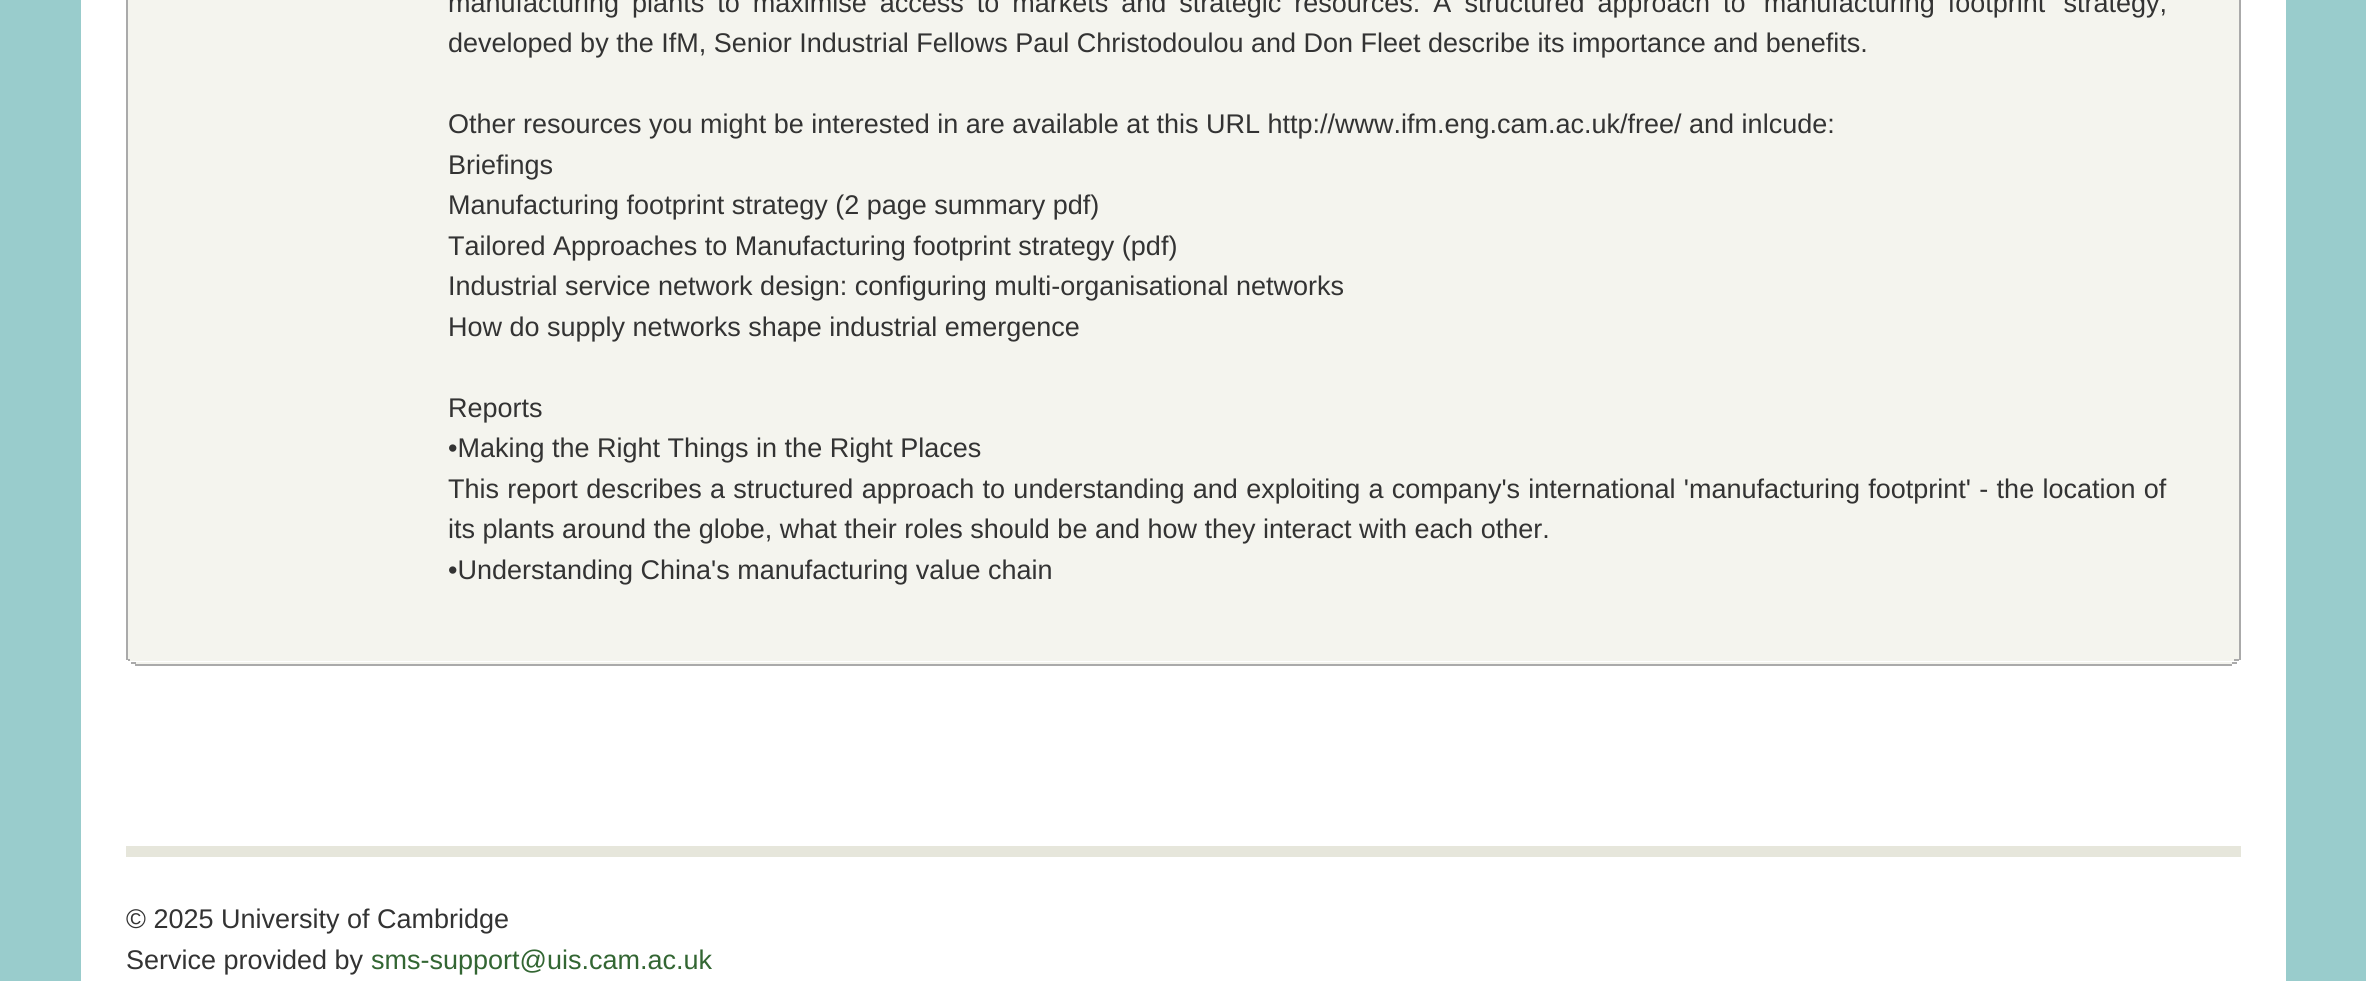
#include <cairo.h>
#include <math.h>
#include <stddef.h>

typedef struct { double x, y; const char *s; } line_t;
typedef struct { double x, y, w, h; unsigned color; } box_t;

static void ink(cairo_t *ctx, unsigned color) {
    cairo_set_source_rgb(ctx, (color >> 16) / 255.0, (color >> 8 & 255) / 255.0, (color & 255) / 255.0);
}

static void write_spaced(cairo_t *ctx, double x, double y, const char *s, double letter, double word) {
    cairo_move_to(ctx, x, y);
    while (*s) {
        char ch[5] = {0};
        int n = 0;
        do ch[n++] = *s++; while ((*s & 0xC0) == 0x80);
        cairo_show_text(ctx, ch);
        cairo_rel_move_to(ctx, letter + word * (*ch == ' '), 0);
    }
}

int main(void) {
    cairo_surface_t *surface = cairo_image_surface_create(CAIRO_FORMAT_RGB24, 2366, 981);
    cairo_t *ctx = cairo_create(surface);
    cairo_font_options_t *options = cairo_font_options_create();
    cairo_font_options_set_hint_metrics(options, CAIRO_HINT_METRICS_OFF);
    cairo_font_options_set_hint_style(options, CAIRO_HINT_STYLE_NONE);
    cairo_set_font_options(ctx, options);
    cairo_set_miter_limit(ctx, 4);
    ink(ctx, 0x99CCCC);
    cairo_paint(ctx);
    {
        static const box_t items[] = {
            {81, 0, 2205, 981, 0xFFFFFF},
            {128, 0, 2111, 655, 0xF4F4EE},
            {2239, 0, 2, 655, 0xAAAAAA},
            {126, 0, 2, 655, 0xAAAAAA},
        };
        for (size_t i = 0; i < sizeof items / sizeof *items; i++) {
            ink(ctx, items[i].color);
            cairo_rectangle(ctx, items[i].x, items[i].y, items[i].w, items[i].h);
            cairo_fill(ctx);
        }
    }
    cairo_select_font_face(ctx, "Liberation Sans", CAIRO_FONT_SLANT_NORMAL, CAIRO_FONT_WEIGHT_NORMAL);
    cairo_set_font_size(ctx, 27);
    ink(ctx, 0x333333);
    write_spaced(ctx, 448, 12, "manufacturing plants to maximise access to markets and strategic resources. A structured approach to 'manufacturing footprint' strategy,", 0, 5.5);
    {
        static const line_t items[] = {
            {448, 52, "developed by the IfM, Senior Industrial Fellows Paul Christodoulou and Don Fleet describe its importance and benefits."},
            {448, 133, "Other resources you might be interested in are available at this URL http://www.ifm.eng.cam.ac.uk/free/ and inlcude:"},
            {448, 174, "Briefings"},
            {448, 214, "Manufacturing footprint strategy (2 page summary pdf)"},
            {448, 255, "Tailored Approaches to Manufacturing footprint strategy (pdf)"},
            {448, 295, "Industrial service network design: configuring multi-organisational networks"},
            {448, 336, "How do supply networks shape industrial emergence"},
            {448, 417, "Reports"},
            {448, 457, "•Making the Right Things in the Right Places"},
        };
        for (size_t i = 0; i < sizeof items / sizeof *items; i++) {
            cairo_move_to(ctx, items[i].x, items[i].y);
            cairo_show_text(ctx, items[i].s);
        }
    }
    write_spaced(ctx, 448, 498, "This report describes a structured approach to understanding and exploiting a company's international 'manufacturing footprint' - the location of", 0, 0.8);
    cairo_move_to(ctx, 448, 538);
    cairo_show_text(ctx, "its plants around the globe, what their roles should be and how they interact with each other.");
    cairo_move_to(ctx, 448, 579);
    cairo_show_text(ctx, "•Understanding China's manufacturing value chain");
    {
        static const box_t items[] = {
            {126, 655, 2115, 4, 0xF4F4EE},
            {2239, 655, 2, 5, 0xAAAAAA},
            {126, 655, 2, 5, 0xAAAAAA},
            {128, 659, 2111, 2, 0xF4F4EE},
            {2234, 659, 5, 2, 0xAAAAAA},
            {128, 659, 2, 2, 0xAAAAAA},
            {131, 662, 2106, 2, 0xF4F4EE},
            {2232, 662, 5, 2, 0xAAAAAA},
            {131, 662, 5, 2, 0xAAAAAA},
            {135, 664, 2097, 2, 0xAAAAAA},
            {126, 846, 2115, 11, 0xE6E6DB},
        };
        for (size_t i = 0; i < sizeof items / sizeof *items; i++) {
            ink(ctx, items[i].color);
            cairo_rectangle(ctx, items[i].x, items[i].y, items[i].w, items[i].h);
            cairo_fill(ctx);
        }
    }
    ink(ctx, 0x333333);
    cairo_move_to(ctx, 126, 928);
    cairo_show_text(ctx, "© 2025 University of Cambridge");
    cairo_move_to(ctx, 126, 969);
    cairo_show_text(ctx, "Service provided by");
    ink(ctx, 0x336633);
    cairo_move_to(ctx, 371, 969);
    cairo_show_text(ctx, "sms-support@uis.cam.ac.uk");
    cairo_surface_write_to_png(surface, "image.png");
    cairo_font_options_destroy(options);
    cairo_destroy(ctx);
    cairo_surface_destroy(surface);
    return 0;
}
